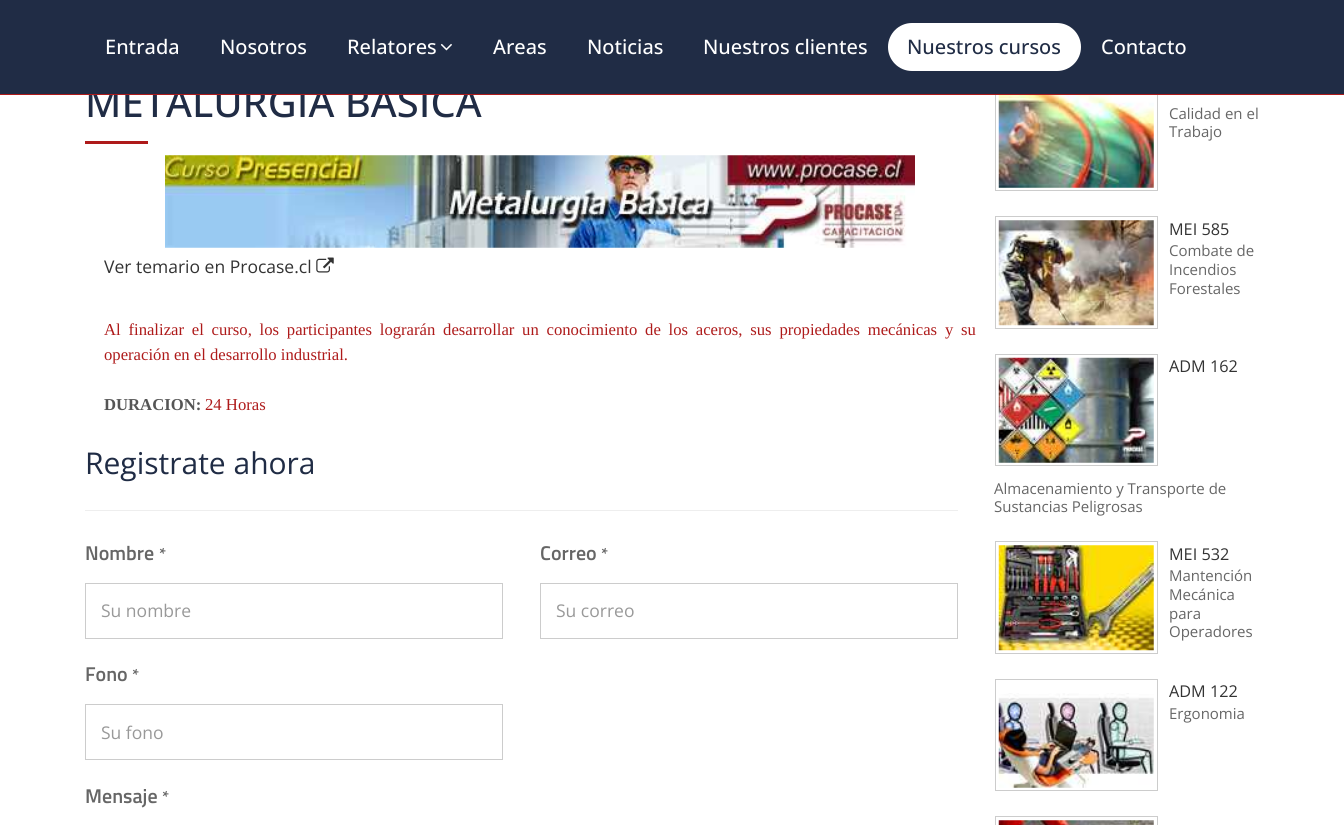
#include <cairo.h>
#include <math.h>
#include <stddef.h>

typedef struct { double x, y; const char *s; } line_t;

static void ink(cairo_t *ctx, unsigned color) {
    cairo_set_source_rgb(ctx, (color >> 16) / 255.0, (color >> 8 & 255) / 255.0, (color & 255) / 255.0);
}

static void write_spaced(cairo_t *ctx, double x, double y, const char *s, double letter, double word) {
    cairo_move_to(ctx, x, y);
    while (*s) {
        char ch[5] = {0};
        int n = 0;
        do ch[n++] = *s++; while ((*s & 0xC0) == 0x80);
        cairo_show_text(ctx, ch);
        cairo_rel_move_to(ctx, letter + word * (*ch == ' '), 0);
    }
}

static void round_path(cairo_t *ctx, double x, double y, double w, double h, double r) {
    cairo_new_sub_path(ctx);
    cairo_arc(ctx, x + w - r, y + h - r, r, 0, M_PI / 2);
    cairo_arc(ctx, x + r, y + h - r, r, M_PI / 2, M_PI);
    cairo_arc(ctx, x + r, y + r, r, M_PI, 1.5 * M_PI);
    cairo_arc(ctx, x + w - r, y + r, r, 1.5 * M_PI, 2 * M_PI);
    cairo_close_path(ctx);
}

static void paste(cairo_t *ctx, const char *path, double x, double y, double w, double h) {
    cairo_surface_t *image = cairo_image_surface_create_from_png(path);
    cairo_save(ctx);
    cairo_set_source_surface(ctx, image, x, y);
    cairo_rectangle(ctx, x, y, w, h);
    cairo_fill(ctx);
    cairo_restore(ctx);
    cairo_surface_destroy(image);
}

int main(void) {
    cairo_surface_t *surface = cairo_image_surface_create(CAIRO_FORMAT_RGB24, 1344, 825);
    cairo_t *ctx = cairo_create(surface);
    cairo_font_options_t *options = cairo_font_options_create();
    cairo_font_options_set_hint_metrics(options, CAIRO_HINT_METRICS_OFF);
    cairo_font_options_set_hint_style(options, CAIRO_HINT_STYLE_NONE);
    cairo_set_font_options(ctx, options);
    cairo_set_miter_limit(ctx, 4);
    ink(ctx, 0xFFFFFF);
    cairo_paint(ctx);
    cairo_rectangle(ctx, 995.5, 79.5, 162, 111);
    ink(ctx, 0xCCCCCC);
    cairo_set_line_width(ctx, 1);
    cairo_stroke(ctx);
    ink(ctx, 0x202C45);
    cairo_rectangle(ctx, 0, 0, 1344, 94);
    cairo_fill(ctx);
    cairo_select_font_face(ctx, "Open Sans Medium", CAIRO_FONT_SLANT_NORMAL, CAIRO_FONT_WEIGHT_NORMAL);
    cairo_set_font_size(ctx, 40);
    cairo_move_to(ctx, 85, 117);
    cairo_show_text(ctx, "METALURGIA BÁSICA");
    ink(ctx, 0xAE1A1A);
    cairo_rectangle(ctx, 0, 94, 1344, 1);
    cairo_fill(ctx);
    cairo_set_font_size(ctx, 20);
    ink(ctx, 0xFFFFFF);
    {
        static const line_t items[] = {
            {105, 54, "Entrada"},
            {220, 54, "Nosotros"},
            {347, 54, "Relatores"},
        };
        for (size_t i = 0; i < sizeof items / sizeof *items; i++) {
            cairo_move_to(ctx, items[i].x, items[i].y);
            cairo_show_text(ctx, items[i].s);
        }
    }
    paste(ctx, "media/1.png", 440, 43, 12, 8);
    {
        static const line_t items[] = {
            {493, 54, "Areas"},
            {587, 54, "Noticias"},
            {703, 54, "Nuestros clientes"},
        };
        for (size_t i = 0; i < sizeof items / sizeof *items; i++) {
            cairo_move_to(ctx, items[i].x, items[i].y);
            cairo_show_text(ctx, items[i].s);
        }
    }
    round_path(ctx, 888, 23, 193, 48, 24);
    cairo_fill(ctx);
    ink(ctx, 0x202C45);
    cairo_move_to(ctx, 907, 54);
    cairo_show_text(ctx, "Nuestros cursos");
    ink(ctx, 0xFFFFFF);
    cairo_move_to(ctx, 1101, 54);
    cairo_show_text(ctx, "Contacto");
    ink(ctx, 0xAE1A1A);
    cairo_rectangle(ctx, 85, 141, 63, 3);
    cairo_fill(ctx);
    paste(ctx, "media/2.png", 165, 155, 750, 93);
    cairo_select_font_face(ctx, "Open Sans", CAIRO_FONT_SLANT_NORMAL, CAIRO_FONT_WEIGHT_NORMAL);
    cairo_set_font_size(ctx, 17.5);
    ink(ctx, 0x333333);
    cairo_move_to(ctx, 104, 273);
    cairo_show_text(ctx, "Ver temario en Procase.cl");
    paste(ctx, "media/3.png", 316, 257, 18, 16);
    cairo_select_font_face(ctx, "Liberation Serif", CAIRO_FONT_SLANT_NORMAL, CAIRO_FONT_WEIGHT_NORMAL);
    cairo_set_font_size(ctx, 16.67);
    ink(ctx, 0xAE1A1A);
    write_spaced(ctx, 104, 335, "Al finalizar el curso, los participantes lograrán desarrollar un conocimiento de los aceros, sus propiedades mecánicas y su", 0, 3.6);
    cairo_move_to(ctx, 104, 360);
    cairo_show_text(ctx, "operación en el desarrollo industrial.");
    cairo_select_font_face(ctx, "Liberation Serif", CAIRO_FONT_SLANT_NORMAL, CAIRO_FONT_WEIGHT_BOLD);
    ink(ctx, 0x555555);
    cairo_move_to(ctx, 104, 410);
    cairo_show_text(ctx, "DURACION:");
    cairo_select_font_face(ctx, "Liberation Serif", CAIRO_FONT_SLANT_NORMAL, CAIRO_FONT_WEIGHT_NORMAL);
    ink(ctx, 0xAE1A1A);
    cairo_move_to(ctx, 205, 410);
    cairo_show_text(ctx, "24 Horas");
    cairo_select_font_face(ctx, "Open Sans", CAIRO_FONT_SLANT_NORMAL, CAIRO_FONT_WEIGHT_NORMAL);
    cairo_set_font_size(ctx, 30);
    ink(ctx, 0x202C45);
    cairo_move_to(ctx, 85, 474);
    cairo_show_text(ctx, "Registrate ahora");
    ink(ctx, 0xEEEEEE);
    cairo_rectangle(ctx, 85, 510, 873, 1);
    cairo_fill(ctx);
    cairo_select_font_face(ctx, "Titillium Web SemiBold", CAIRO_FONT_SLANT_NORMAL, CAIRO_FONT_WEIGHT_NORMAL);
    cairo_set_font_size(ctx, 20);
    ink(ctx, 0x666666);
    cairo_move_to(ctx, 85, 560);
    cairo_show_text(ctx, "Nombre");
    cairo_set_font_size(ctx, 17);
    cairo_move_to(ctx, 159, 560);
    cairo_show_text(ctx, "*");
    cairo_rectangle(ctx, 85.5, 583.5, 417, 55);
    ink(ctx, 0xCCCCCC);
    cairo_stroke(ctx);
    cairo_select_font_face(ctx, "Open Sans", CAIRO_FONT_SLANT_NORMAL, CAIRO_FONT_WEIGHT_NORMAL);
    cairo_set_font_size(ctx, 17.5);
    ink(ctx, 0x999999);
    cairo_move_to(ctx, 101, 617);
    cairo_show_text(ctx, "Su nombre");
    cairo_select_font_face(ctx, "Titillium Web SemiBold", CAIRO_FONT_SLANT_NORMAL, CAIRO_FONT_WEIGHT_NORMAL);
    cairo_set_font_size(ctx, 20);
    ink(ctx, 0x666666);
    cairo_move_to(ctx, 540, 560);
    cairo_show_text(ctx, "Correo");
    cairo_set_font_size(ctx, 17);
    cairo_move_to(ctx, 601, 560);
    cairo_show_text(ctx, "*");
    cairo_rectangle(ctx, 540.5, 583.5, 417, 55);
    ink(ctx, 0xCCCCCC);
    cairo_stroke(ctx);
    cairo_select_font_face(ctx, "Open Sans", CAIRO_FONT_SLANT_NORMAL, CAIRO_FONT_WEIGHT_NORMAL);
    cairo_set_font_size(ctx, 17.5);
    ink(ctx, 0x999999);
    cairo_move_to(ctx, 556, 617);
    cairo_show_text(ctx, "Su correo");
    cairo_select_font_face(ctx, "Titillium Web SemiBold", CAIRO_FONT_SLANT_NORMAL, CAIRO_FONT_WEIGHT_NORMAL);
    cairo_set_font_size(ctx, 20);
    ink(ctx, 0x666666);
    cairo_move_to(ctx, 85, 681);
    cairo_show_text(ctx, "Fono");
    cairo_set_font_size(ctx, 17);
    cairo_move_to(ctx, 132, 681);
    cairo_show_text(ctx, "*");
    cairo_rectangle(ctx, 85.5, 704.5, 417, 55);
    ink(ctx, 0xCCCCCC);
    cairo_stroke(ctx);
    cairo_select_font_face(ctx, "Open Sans", CAIRO_FONT_SLANT_NORMAL, CAIRO_FONT_WEIGHT_NORMAL);
    cairo_set_font_size(ctx, 17.5);
    ink(ctx, 0x999999);
    cairo_move_to(ctx, 101, 739);
    cairo_show_text(ctx, "Su fono");
    cairo_select_font_face(ctx, "Titillium Web SemiBold", CAIRO_FONT_SLANT_NORMAL, CAIRO_FONT_WEIGHT_NORMAL);
    cairo_set_font_size(ctx, 20);
    ink(ctx, 0x666666);
    cairo_move_to(ctx, 85, 803);
    cairo_show_text(ctx, "Mensaje");
    cairo_set_font_size(ctx, 17);
    cairo_move_to(ctx, 162, 803);
    cairo_show_text(ctx, "*");
    paste(ctx, "media/4.png", 998, 95, 156, 93);
    cairo_select_font_face(ctx, "Open Sans", CAIRO_FONT_SLANT_NORMAL, CAIRO_FONT_WEIGHT_NORMAL);
    cairo_set_font_size(ctx, 15);
    cairo_move_to(ctx, 1169, 119);
    cairo_show_text(ctx, "Calidad en el");
    cairo_move_to(ctx, 1169, 137);
    cairo_show_text(ctx, "Trabajo");
    cairo_rectangle(ctx, 995.5, 216.5, 162, 112);
    ink(ctx, 0xCCCCCC);
    cairo_stroke(ctx);
    paste(ctx, "media/5.png", 998, 220, 156, 106);
    cairo_set_font_size(ctx, 16.25);
    ink(ctx, 0x333333);
    cairo_move_to(ctx, 1169, 235);
    cairo_show_text(ctx, "MEI 585");
    cairo_set_font_size(ctx, 15);
    ink(ctx, 0x666666);
    {
        static const line_t items[] = {
            {1169, 256, "Combate de"},
            {1169, 275, "Incendios"},
            {1169, 294, "Forestales"},
        };
        for (size_t i = 0; i < sizeof items / sizeof *items; i++) {
            cairo_move_to(ctx, items[i].x, items[i].y);
            cairo_show_text(ctx, items[i].s);
        }
    }
    cairo_rectangle(ctx, 995.5, 354.5, 162, 111);
    ink(ctx, 0xCCCCCC);
    cairo_stroke(ctx);
    paste(ctx, "media/6.png", 998, 357, 156, 106);
    cairo_set_font_size(ctx, 16.25);
    ink(ctx, 0x333333);
    cairo_move_to(ctx, 1169, 372);
    cairo_show_text(ctx, "ADM 162");
    cairo_set_font_size(ctx, 15);
    ink(ctx, 0x666666);
    cairo_move_to(ctx, 994, 494);
    cairo_show_text(ctx, "Almacenamiento y Transporte de");
    cairo_move_to(ctx, 994, 512);
    cairo_show_text(ctx, "Sustancias Peligrosas");
    cairo_rectangle(ctx, 995.5, 541.5, 162, 112);
    ink(ctx, 0xCCCCCC);
    cairo_stroke(ctx);
    paste(ctx, "media/7.png", 998, 545, 156, 106);
    cairo_set_font_size(ctx, 16.25);
    ink(ctx, 0x333333);
    cairo_move_to(ctx, 1169, 560);
    cairo_show_text(ctx, "MEI 532");
    cairo_set_font_size(ctx, 15);
    ink(ctx, 0x666666);
    {
        static const line_t items[] = {
            {1169, 581, "Mantención"},
            {1169, 600, "Mecánica"},
            {1169, 619, "para"},
            {1169, 637, "Operadores"},
        };
        for (size_t i = 0; i < sizeof items / sizeof *items; i++) {
            cairo_move_to(ctx, items[i].x, items[i].y);
            cairo_show_text(ctx, items[i].s);
        }
    }
    cairo_rectangle(ctx, 995.5, 679.5, 162, 111);
    ink(ctx, 0xCCCCCC);
    cairo_stroke(ctx);
    paste(ctx, "media/8.png", 998, 693, 156, 95);
    cairo_set_font_size(ctx, 16.25);
    ink(ctx, 0x333333);
    cairo_move_to(ctx, 1169, 697);
    cairo_show_text(ctx, "ADM 122");
    cairo_set_font_size(ctx, 15);
    ink(ctx, 0x666666);
    cairo_move_to(ctx, 1169, 719);
    cairo_show_text(ctx, "Ergonomia");
    cairo_rectangle(ctx, 995.5, 816.5, 162, 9);
    ink(ctx, 0xCCCCCC);
    cairo_stroke(ctx);
    paste(ctx, "media/9.png", 998, 820, 156, 5);
    cairo_surface_write_to_png(surface, "image.png");
    cairo_font_options_destroy(options);
    cairo_destroy(ctx);
    cairo_surface_destroy(surface);
    return 0;
}
